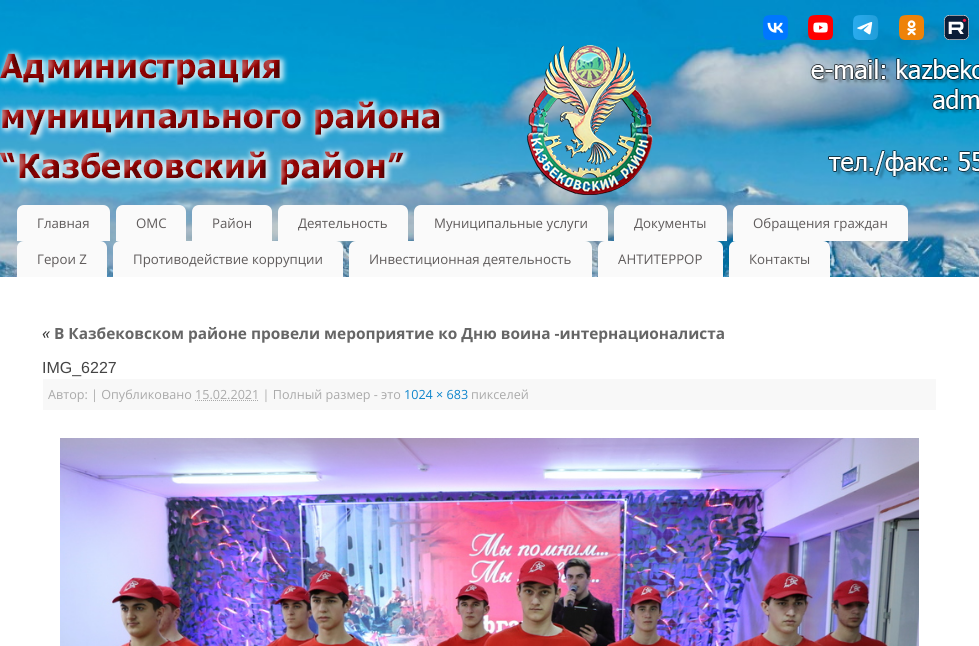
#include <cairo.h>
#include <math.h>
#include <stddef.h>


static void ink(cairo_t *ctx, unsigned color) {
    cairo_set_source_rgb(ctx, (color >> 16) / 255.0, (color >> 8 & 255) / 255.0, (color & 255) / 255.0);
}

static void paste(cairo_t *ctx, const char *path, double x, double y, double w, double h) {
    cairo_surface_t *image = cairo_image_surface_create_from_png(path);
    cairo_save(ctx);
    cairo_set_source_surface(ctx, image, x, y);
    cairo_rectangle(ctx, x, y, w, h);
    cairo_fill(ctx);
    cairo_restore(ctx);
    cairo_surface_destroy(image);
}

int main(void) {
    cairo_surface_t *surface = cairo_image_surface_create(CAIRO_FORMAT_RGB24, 979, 646);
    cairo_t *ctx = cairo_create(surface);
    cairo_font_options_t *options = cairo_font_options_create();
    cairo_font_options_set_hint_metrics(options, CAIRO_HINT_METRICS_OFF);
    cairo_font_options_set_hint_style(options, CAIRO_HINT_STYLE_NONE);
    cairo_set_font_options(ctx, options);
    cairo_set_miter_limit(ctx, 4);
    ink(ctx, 0xFFFFFF);
    cairo_paint(ctx);
    paste(ctx, "media/1.png", 0, 0, 979, 277);
    paste(ctx, "media/2.png", 763, 15, 25, 25);
    paste(ctx, "media/3.png", 808, 15, 25, 25);
    paste(ctx, "media/4.png", 853, 15, 26, 25);
    paste(ctx, "media/5.png", 899, 15, 25, 25);
    paste(ctx, "media/6.png", 944, 15, 25, 25);
    paste(ctx, "media/7.png", 0, 45, 979, 150);
    ink(ctx, 0xFAFAFA);
    cairo_new_path(ctx);
    cairo_move_to(ctx, 24, 205);
    cairo_line_to(ctx, 103, 205);
    cairo_curve_to(ctx, 107, 205, 110, 208, 110, 212);
    cairo_line_to(ctx, 110, 241);
    cairo_line_to(ctx, 17, 241);
    cairo_line_to(ctx, 17, 212);
    cairo_curve_to(ctx, 17, 208, 20, 205, 24, 205);
    cairo_close_path(ctx);
    cairo_fill(ctx);
    cairo_select_font_face(ctx, "Open Sans", CAIRO_FONT_SLANT_NORMAL, CAIRO_FONT_WEIGHT_NORMAL);
    cairo_set_font_size(ctx, 13.25);
    ink(ctx, 0x5F5B5B);
    cairo_move_to(ctx, 37, 228);
    cairo_show_text(ctx, "Главная");
    ink(ctx, 0xFAFAFA);
    cairo_new_path(ctx);
    cairo_move_to(ctx, 123, 205);
    cairo_line_to(ctx, 179, 205);
    cairo_curve_to(ctx, 183, 205, 186, 208, 186, 212);
    cairo_line_to(ctx, 186, 241);
    cairo_line_to(ctx, 116, 241);
    cairo_line_to(ctx, 116, 212);
    cairo_curve_to(ctx, 116, 208, 119, 205, 123, 205);
    cairo_close_path(ctx);
    cairo_fill(ctx);
    ink(ctx, 0x5F5B5B);
    cairo_move_to(ctx, 136, 228);
    cairo_show_text(ctx, "ОМС");
    ink(ctx, 0xFAFAFA);
    cairo_new_path(ctx);
    cairo_move_to(ctx, 199, 205);
    cairo_line_to(ctx, 265, 205);
    cairo_curve_to(ctx, 269, 205, 272, 208, 272, 212);
    cairo_line_to(ctx, 272, 241);
    cairo_line_to(ctx, 192, 241);
    cairo_line_to(ctx, 192, 212);
    cairo_curve_to(ctx, 192, 208, 195, 205, 199, 205);
    cairo_close_path(ctx);
    cairo_fill(ctx);
    ink(ctx, 0x5F5B5B);
    cairo_move_to(ctx, 212, 228);
    cairo_show_text(ctx, "Район");
    ink(ctx, 0xFAFAFA);
    cairo_new_path(ctx);
    cairo_move_to(ctx, 285, 205);
    cairo_line_to(ctx, 401, 205);
    cairo_curve_to(ctx, 405, 205, 408, 208, 408, 212);
    cairo_line_to(ctx, 408, 241);
    cairo_line_to(ctx, 278, 241);
    cairo_line_to(ctx, 278, 212);
    cairo_curve_to(ctx, 278, 208, 281, 205, 285, 205);
    cairo_close_path(ctx);
    cairo_fill(ctx);
    ink(ctx, 0x5F5B5B);
    cairo_move_to(ctx, 298, 228);
    cairo_show_text(ctx, "Деятельность");
    ink(ctx, 0xFAFAFA);
    cairo_new_path(ctx);
    cairo_move_to(ctx, 421, 205);
    cairo_line_to(ctx, 601, 205);
    cairo_curve_to(ctx, 605, 205, 608, 208, 608, 212);
    cairo_line_to(ctx, 608, 241);
    cairo_line_to(ctx, 414, 241);
    cairo_line_to(ctx, 414, 212);
    cairo_curve_to(ctx, 414, 208, 417, 205, 421, 205);
    cairo_close_path(ctx);
    cairo_fill(ctx);
    ink(ctx, 0x5F5B5B);
    cairo_move_to(ctx, 434, 228);
    cairo_show_text(ctx, "Муниципальные услуги");
    ink(ctx, 0xFAFAFA);
    cairo_new_path(ctx);
    cairo_move_to(ctx, 621, 205);
    cairo_line_to(ctx, 720, 205);
    cairo_curve_to(ctx, 724, 205, 727, 208, 727, 212);
    cairo_line_to(ctx, 727, 241);
    cairo_line_to(ctx, 614, 241);
    cairo_line_to(ctx, 614, 212);
    cairo_curve_to(ctx, 614, 208, 617, 205, 621, 205);
    cairo_close_path(ctx);
    cairo_fill(ctx);
    ink(ctx, 0x5F5B5B);
    cairo_move_to(ctx, 634, 228);
    cairo_show_text(ctx, "Документы");
    ink(ctx, 0xFAFAFA);
    cairo_new_path(ctx);
    cairo_move_to(ctx, 740, 205);
    cairo_line_to(ctx, 901, 205);
    cairo_curve_to(ctx, 905, 205, 908, 208, 908, 212);
    cairo_line_to(ctx, 908, 241);
    cairo_line_to(ctx, 733, 241);
    cairo_line_to(ctx, 733, 212);
    cairo_curve_to(ctx, 733, 208, 736, 205, 740, 205);
    cairo_close_path(ctx);
    cairo_fill(ctx);
    ink(ctx, 0x5F5B5B);
    cairo_move_to(ctx, 753, 228);
    cairo_show_text(ctx, "Обращения граждан");
    ink(ctx, 0xFAFAFA);
    cairo_new_path(ctx);
    cairo_move_to(ctx, 24, 241);
    cairo_line_to(ctx, 100, 241);
    cairo_curve_to(ctx, 104, 241, 107, 244, 107, 248);
    cairo_line_to(ctx, 107, 277);
    cairo_line_to(ctx, 17, 277);
    cairo_line_to(ctx, 17, 248);
    cairo_curve_to(ctx, 17, 244, 20, 241, 24, 241);
    cairo_close_path(ctx);
    cairo_fill(ctx);
    ink(ctx, 0x5F5B5B);
    cairo_move_to(ctx, 37, 264);
    cairo_show_text(ctx, "Герои Z");
    ink(ctx, 0xFAFAFA);
    cairo_new_path(ctx);
    cairo_move_to(ctx, 120, 241);
    cairo_line_to(ctx, 336, 241);
    cairo_curve_to(ctx, 340, 241, 343, 244, 343, 248);
    cairo_line_to(ctx, 343, 277);
    cairo_line_to(ctx, 113, 277);
    cairo_line_to(ctx, 113, 248);
    cairo_curve_to(ctx, 113, 244, 116, 241, 120, 241);
    cairo_close_path(ctx);
    cairo_fill(ctx);
    ink(ctx, 0x5F5B5B);
    cairo_move_to(ctx, 133, 264);
    cairo_show_text(ctx, "Противодействие коррупции");
    ink(ctx, 0xFAFAFA);
    cairo_new_path(ctx);
    cairo_move_to(ctx, 356, 241);
    cairo_line_to(ctx, 585, 241);
    cairo_curve_to(ctx, 589, 241, 592, 244, 592, 248);
    cairo_line_to(ctx, 592, 277);
    cairo_line_to(ctx, 349, 277);
    cairo_line_to(ctx, 349, 248);
    cairo_curve_to(ctx, 349, 244, 352, 241, 356, 241);
    cairo_close_path(ctx);
    cairo_fill(ctx);
    ink(ctx, 0x5F5B5B);
    cairo_move_to(ctx, 369, 264);
    cairo_show_text(ctx, "Инвестиционная деятельность");
    ink(ctx, 0xFAFAFA);
    cairo_new_path(ctx);
    cairo_move_to(ctx, 605, 241);
    cairo_line_to(ctx, 716, 241);
    cairo_curve_to(ctx, 720, 241, 723, 244, 723, 248);
    cairo_line_to(ctx, 723, 277);
    cairo_line_to(ctx, 598, 277);
    cairo_line_to(ctx, 598, 248);
    cairo_curve_to(ctx, 598, 244, 601, 241, 605, 241);
    cairo_close_path(ctx);
    cairo_fill(ctx);
    ink(ctx, 0x5F5B5B);
    cairo_move_to(ctx, 618, 264);
    cairo_show_text(ctx, "АНТИТЕРРОР");
    ink(ctx, 0xFAFAFA);
    cairo_new_path(ctx);
    cairo_move_to(ctx, 736, 241);
    cairo_line_to(ctx, 823, 241);
    cairo_curve_to(ctx, 827, 241, 830, 244, 830, 248);
    cairo_line_to(ctx, 830, 277);
    cairo_line_to(ctx, 729, 277);
    cairo_line_to(ctx, 729, 248);
    cairo_curve_to(ctx, 729, 244, 732, 241, 736, 241);
    cairo_close_path(ctx);
    cairo_fill(ctx);
    ink(ctx, 0x5F5B5B);
    cairo_move_to(ctx, 749, 264);
    cairo_show_text(ctx, "Контакты");
    cairo_select_font_face(ctx, "Open Sans", CAIRO_FONT_SLANT_ITALIC, CAIRO_FONT_WEIGHT_NORMAL);
    cairo_set_font_size(ctx, 17);
    ink(ctx, 0x333333);
    cairo_move_to(ctx, 42, 339);
    cairo_show_text(ctx, "«");
    cairo_select_font_face(ctx, "Open Sans", CAIRO_FONT_SLANT_NORMAL, CAIRO_FONT_WEIGHT_BOLD);
    cairo_set_font_size(ctx, 15.4);
    ink(ctx, 0x666666);
    cairo_move_to(ctx, 54, 339);
    cairo_show_text(ctx, "В Казбековском районе провели мероприятие ко Дню воина -интернационалиста");
    cairo_select_font_face(ctx, "Liberation Sans", CAIRO_FONT_SLANT_NORMAL, CAIRO_FONT_WEIGHT_NORMAL);
    cairo_set_font_size(ctx, 16);
    ink(ctx, 0x444444);
    cairo_move_to(ctx, 42, 373);
    cairo_show_text(ctx, "IMG_6227");
    ink(ctx, 0xF8F8F8);
    cairo_rectangle(ctx, 43, 379, 893, 31);
    cairo_fill(ctx);
    cairo_select_font_face(ctx, "Open Sans", CAIRO_FONT_SLANT_NORMAL, CAIRO_FONT_WEIGHT_NORMAL);
    cairo_set_font_size(ctx, 12.6);
    ink(ctx, 0xAAAAAA);
    cairo_move_to(ctx, 48, 399);
    cairo_show_text(ctx, "Автор: | Опубликовано 15.02.2021 | Полный размер - это");
    ink(ctx, 0x0D85CC);
    cairo_move_to(ctx, 404, 399);
    cairo_show_text(ctx, "1024 × 683");
    ink(ctx, 0xAAAAAA);
    cairo_move_to(ctx, 471, 399);
    cairo_show_text(ctx, "пикселей");
    cairo_new_path(ctx);
    cairo_move_to(ctx, 195, 400.5);
    cairo_line_to(ctx, 259, 400.5);
    cairo_set_line_width(ctx, 1);
    cairo_set_dash(ctx, (double[]){1, 1}, 2, 0);
    cairo_stroke(ctx);
    paste(ctx, "media/8.png", 60, 438, 859, 208);
    cairo_surface_write_to_png(surface, "image.png");
    cairo_font_options_destroy(options);
    cairo_destroy(ctx);
    cairo_surface_destroy(surface);
    return 0;
}
